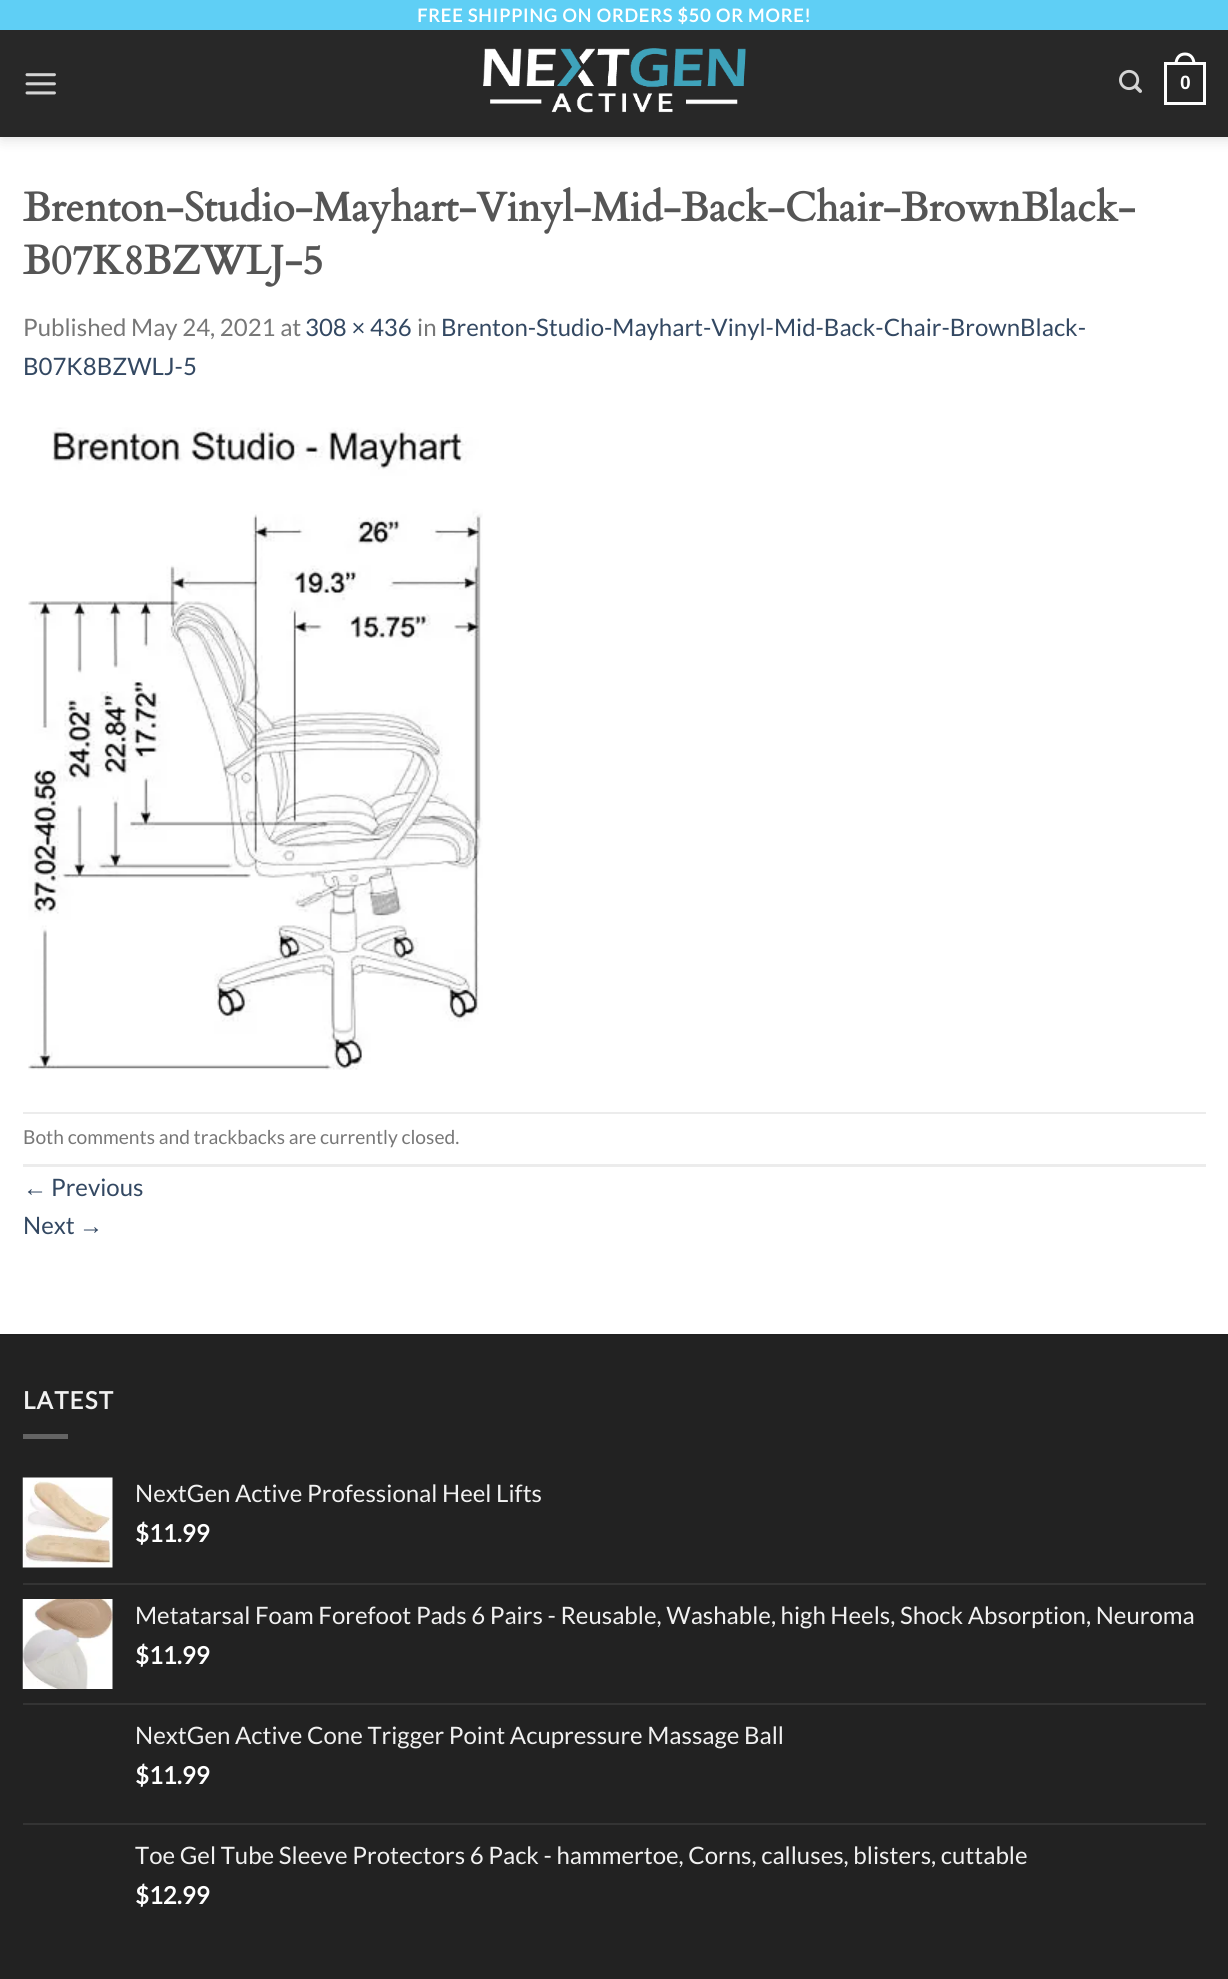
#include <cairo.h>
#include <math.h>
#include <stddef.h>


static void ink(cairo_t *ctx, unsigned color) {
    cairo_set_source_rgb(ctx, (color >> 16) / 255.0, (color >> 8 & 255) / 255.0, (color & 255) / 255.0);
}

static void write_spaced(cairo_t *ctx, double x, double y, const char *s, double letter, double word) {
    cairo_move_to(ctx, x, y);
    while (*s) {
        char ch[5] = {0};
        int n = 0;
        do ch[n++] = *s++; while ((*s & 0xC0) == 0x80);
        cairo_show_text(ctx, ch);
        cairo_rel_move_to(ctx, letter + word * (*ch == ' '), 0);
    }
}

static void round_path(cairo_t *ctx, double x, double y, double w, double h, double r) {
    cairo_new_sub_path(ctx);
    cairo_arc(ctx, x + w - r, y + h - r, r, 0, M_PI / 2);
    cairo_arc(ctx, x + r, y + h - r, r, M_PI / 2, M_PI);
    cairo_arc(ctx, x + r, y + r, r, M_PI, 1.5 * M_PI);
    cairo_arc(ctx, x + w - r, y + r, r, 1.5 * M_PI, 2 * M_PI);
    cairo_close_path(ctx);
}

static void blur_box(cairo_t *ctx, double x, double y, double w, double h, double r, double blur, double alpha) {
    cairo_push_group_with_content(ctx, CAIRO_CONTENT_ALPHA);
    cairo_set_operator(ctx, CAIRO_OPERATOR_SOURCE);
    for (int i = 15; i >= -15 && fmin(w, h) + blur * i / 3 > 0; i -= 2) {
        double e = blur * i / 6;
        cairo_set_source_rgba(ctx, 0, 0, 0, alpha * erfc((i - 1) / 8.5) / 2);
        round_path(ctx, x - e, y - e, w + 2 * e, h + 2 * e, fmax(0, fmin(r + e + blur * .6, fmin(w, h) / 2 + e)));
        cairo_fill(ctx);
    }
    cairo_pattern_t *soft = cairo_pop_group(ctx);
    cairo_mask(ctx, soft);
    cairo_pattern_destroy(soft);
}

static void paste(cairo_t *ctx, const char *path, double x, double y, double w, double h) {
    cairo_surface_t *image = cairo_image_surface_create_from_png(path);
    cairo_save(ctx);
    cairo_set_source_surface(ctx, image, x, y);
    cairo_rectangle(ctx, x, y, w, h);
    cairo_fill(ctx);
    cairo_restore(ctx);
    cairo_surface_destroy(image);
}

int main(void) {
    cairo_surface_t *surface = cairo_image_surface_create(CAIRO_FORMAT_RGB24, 1228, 1979);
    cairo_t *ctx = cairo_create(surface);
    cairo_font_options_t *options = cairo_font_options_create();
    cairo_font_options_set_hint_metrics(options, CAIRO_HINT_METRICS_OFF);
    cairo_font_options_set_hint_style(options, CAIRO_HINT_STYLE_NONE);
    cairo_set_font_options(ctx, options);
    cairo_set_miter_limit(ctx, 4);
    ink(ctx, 0xFFFFFF);
    cairo_paint(ctx);
    ink(ctx, 0x000000);
    blur_box(ctx, 2, 2, 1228, 136, 0, 7.5, 0.15);
    ink(ctx, 0x282828);
    cairo_rectangle(ctx, 0, 30, 1228, 107);
    cairo_fill(ctx);
    ink(ctx, 0x5FCFF5);
    cairo_rectangle(ctx, 0, 0, 1228, 30);
    cairo_fill(ctx);
    cairo_select_font_face(ctx, "Lato", CAIRO_FONT_SLANT_NORMAL, CAIRO_FONT_WEIGHT_BOLD);
    cairo_set_font_size(ctx, 18);
    ink(ctx, 0xFFFFFF);
    write_spaced(ctx, 417, 22, "FREE SHIPPING ON ORDERS $50 OR MORE!", 0.9, 0);
    paste(ctx, "media/1.png", 25, 73, 31, 22);
    paste(ctx, "media/2.png", 483, 48, 263, 65);
    paste(ctx, "media/3.png", 1119, 69, 23, 24);
    cairo_rectangle(ctx, 1165.5, 63.5, 39, 40);
    cairo_set_line_width(ctx, 3);
    cairo_stroke(ctx);
    cairo_set_fill_rule(ctx, CAIRO_FILL_RULE_EVEN_ODD);
    cairo_new_path(ctx);
    cairo_move_to(ctx, 1185, 52.5);
    cairo_curve_to(ctx, 1192, 52.5, 1195.5, 58, 1195.5, 64.5);
    cairo_line_to(ctx, 1174.5, 64.5);
    cairo_curve_to(ctx, 1174.5, 58, 1178, 52.5, 1185, 52.5);
    cairo_close_path(ctx);
    cairo_move_to(ctx, 1185, 55.5);
    cairo_curve_to(ctx, 1190.5, 55.5, 1192.5, 60, 1192.5, 64.5);
    cairo_line_to(ctx, 1177.5, 64.5);
    cairo_curve_to(ctx, 1177.5, 60, 1179.5, 55.5, 1185, 55.5);
    cairo_close_path(ctx);
    cairo_fill(ctx);
    cairo_select_font_face(ctx, "Liberation Sans", CAIRO_FONT_SLANT_NORMAL, CAIRO_FONT_WEIGHT_BOLD);
    cairo_set_font_size(ctx, 19.2);
    cairo_move_to(ctx, 1180, 89);
    cairo_show_text(ctx, "0");
    cairo_select_font_face(ctx, "Cardo", CAIRO_FONT_SLANT_NORMAL, CAIRO_FONT_WEIGHT_BOLD);
    cairo_set_font_size(ctx, 40.8);
    ink(ctx, 0x555555);
    cairo_move_to(ctx, 23, 221);
    cairo_show_text(ctx, "Brenton-Studio-Mayhart-Vinyl-Mid-Back-Chair-BrownBlack-");
    cairo_move_to(ctx, 23, 274);
    cairo_show_text(ctx, "B07K8BZWLJ-5");
    cairo_select_font_face(ctx, "Lato", CAIRO_FONT_SLANT_NORMAL, CAIRO_FONT_WEIGHT_NORMAL);
    cairo_set_font_size(ctx, 24);
    ink(ctx, 0x777777);
    cairo_move_to(ctx, 23, 336);
    cairo_show_text(ctx, "Published May 24, 2021 at");
    ink(ctx, 0x334862);
    cairo_move_to(ctx, 305, 336);
    cairo_show_text(ctx, "308 × 436");
    ink(ctx, 0x777777);
    cairo_move_to(ctx, 417, 336);
    cairo_show_text(ctx, "in");
    ink(ctx, 0x334862);
    cairo_move_to(ctx, 441, 336);
    cairo_show_text(ctx, "Brenton-Studio-Mayhart-Vinyl-Mid-Back-Chair-BrownBlack-");
    cairo_move_to(ctx, 23, 375);
    cairo_show_text(ctx, "B07K8BZWLJ-5");
    paste(ctx, "media/4.png", 28, 427, 455, 643);
    ink(ctx, 0xECECEC);
    cairo_rectangle(ctx, 23, 1112, 1183, 2);
    cairo_fill(ctx);
    cairo_rectangle(ctx, 23, 1164, 1183, 3);
    cairo_fill(ctx);
    cairo_set_font_size(ctx, 19.2);
    ink(ctx, 0x777777);
    cairo_move_to(ctx, 23, 1144);
    cairo_show_text(ctx, "Both comments and trackbacks are currently closed.");
    cairo_select_font_face(ctx, "Liberation Sans", CAIRO_FONT_SLANT_NORMAL, CAIRO_FONT_WEIGHT_NORMAL);
    cairo_set_font_size(ctx, 24);
    ink(ctx, 0x334862);
    cairo_move_to(ctx, 23, 1196);
    cairo_show_text(ctx, "←");
    cairo_select_font_face(ctx, "Lato", CAIRO_FONT_SLANT_NORMAL, CAIRO_FONT_WEIGHT_NORMAL);
    cairo_move_to(ctx, 51, 1196);
    cairo_show_text(ctx, "Previous");
    cairo_move_to(ctx, 23, 1234);
    cairo_show_text(ctx, "Next");
    cairo_select_font_face(ctx, "Liberation Sans", CAIRO_FONT_SLANT_NORMAL, CAIRO_FONT_WEIGHT_NORMAL);
    cairo_move_to(ctx, 79, 1234);
    cairo_show_text(ctx, "→");
    ink(ctx, 0x222222);
    cairo_rectangle(ctx, 0, 1336, 1228, 643);
    cairo_fill(ctx);
    ink(ctx, 0x202020);
    cairo_rectangle(ctx, 0, 1334, 1228, 2);
    cairo_fill(ctx);
    cairo_select_font_face(ctx, "Lato", CAIRO_FONT_SLANT_NORMAL, CAIRO_FONT_WEIGHT_BOLD);
    ink(ctx, 0xF1F1F1);
    write_spaced(ctx, 23, 1409, "LATEST", 1.25, 0);
    ink(ctx, 0x646464);
    cairo_rectangle(ctx, 23, 1434, 45, 5);
    cairo_fill(ctx);
    paste(ctx, "media/5.png", 22, 1477, 91, 91);
    cairo_select_font_face(ctx, "Lato", CAIRO_FONT_SLANT_NORMAL, CAIRO_FONT_WEIGHT_NORMAL);
    ink(ctx, 0xF1F1F1);
    cairo_move_to(ctx, 135, 1502);
    cairo_show_text(ctx, "NextGen Active Professional Heel Lifts");
    cairo_select_font_face(ctx, "Lato", CAIRO_FONT_SLANT_NORMAL, CAIRO_FONT_WEIGHT_BOLD);
    ink(ctx, 0xFFFFFF);
    cairo_move_to(ctx, 135, 1542);
    cairo_show_text(ctx, "$11.99");
    ink(ctx, 0x343434);
    cairo_rectangle(ctx, 23, 1583, 1183, 2);
    cairo_fill(ctx);
    paste(ctx, "media/6.png", 22, 1599, 91, 90);
    cairo_select_font_face(ctx, "Lato", CAIRO_FONT_SLANT_NORMAL, CAIRO_FONT_WEIGHT_NORMAL);
    ink(ctx, 0xF1F1F1);
    cairo_move_to(ctx, 135, 1624);
    cairo_show_text(ctx, "Metatarsal Foam Forefoot Pads 6 Pairs - Reusable, Washable, high Heels, Shock Absorption, Neuroma");
    cairo_select_font_face(ctx, "Lato", CAIRO_FONT_SLANT_NORMAL, CAIRO_FONT_WEIGHT_BOLD);
    ink(ctx, 0xFFFFFF);
    cairo_move_to(ctx, 135, 1664);
    cairo_show_text(ctx, "$11.99");
    ink(ctx, 0x343434);
    cairo_rectangle(ctx, 23, 1703, 1183, 2);
    cairo_fill(ctx);
    cairo_select_font_face(ctx, "Lato", CAIRO_FONT_SLANT_NORMAL, CAIRO_FONT_WEIGHT_NORMAL);
    ink(ctx, 0xF1F1F1);
    cairo_move_to(ctx, 135, 1744);
    cairo_show_text(ctx, "NextGen Active Cone Trigger Point Acupressure Massage Ball");
    cairo_select_font_face(ctx, "Lato", CAIRO_FONT_SLANT_NORMAL, CAIRO_FONT_WEIGHT_BOLD);
    ink(ctx, 0xFFFFFF);
    cairo_move_to(ctx, 135, 1784);
    cairo_show_text(ctx, "$11.99");
    ink(ctx, 0x343434);
    cairo_rectangle(ctx, 23, 1823, 1183, 2);
    cairo_fill(ctx);
    cairo_select_font_face(ctx, "Lato", CAIRO_FONT_SLANT_NORMAL, CAIRO_FONT_WEIGHT_NORMAL);
    ink(ctx, 0xF1F1F1);
    cairo_move_to(ctx, 135, 1864);
    cairo_show_text(ctx, "Toe Gel Tube Sleeve Protectors 6 Pack - hammertoe, Corns, calluses, blisters, cuttable");
    cairo_select_font_face(ctx, "Lato", CAIRO_FONT_SLANT_NORMAL, CAIRO_FONT_WEIGHT_BOLD);
    ink(ctx, 0xFFFFFF);
    cairo_move_to(ctx, 135, 1904);
    cairo_show_text(ctx, "$12.99");
    cairo_surface_write_to_png(surface, "image.png");
    cairo_font_options_destroy(options);
    cairo_destroy(ctx);
    cairo_surface_destroy(surface);
    return 0;
}
